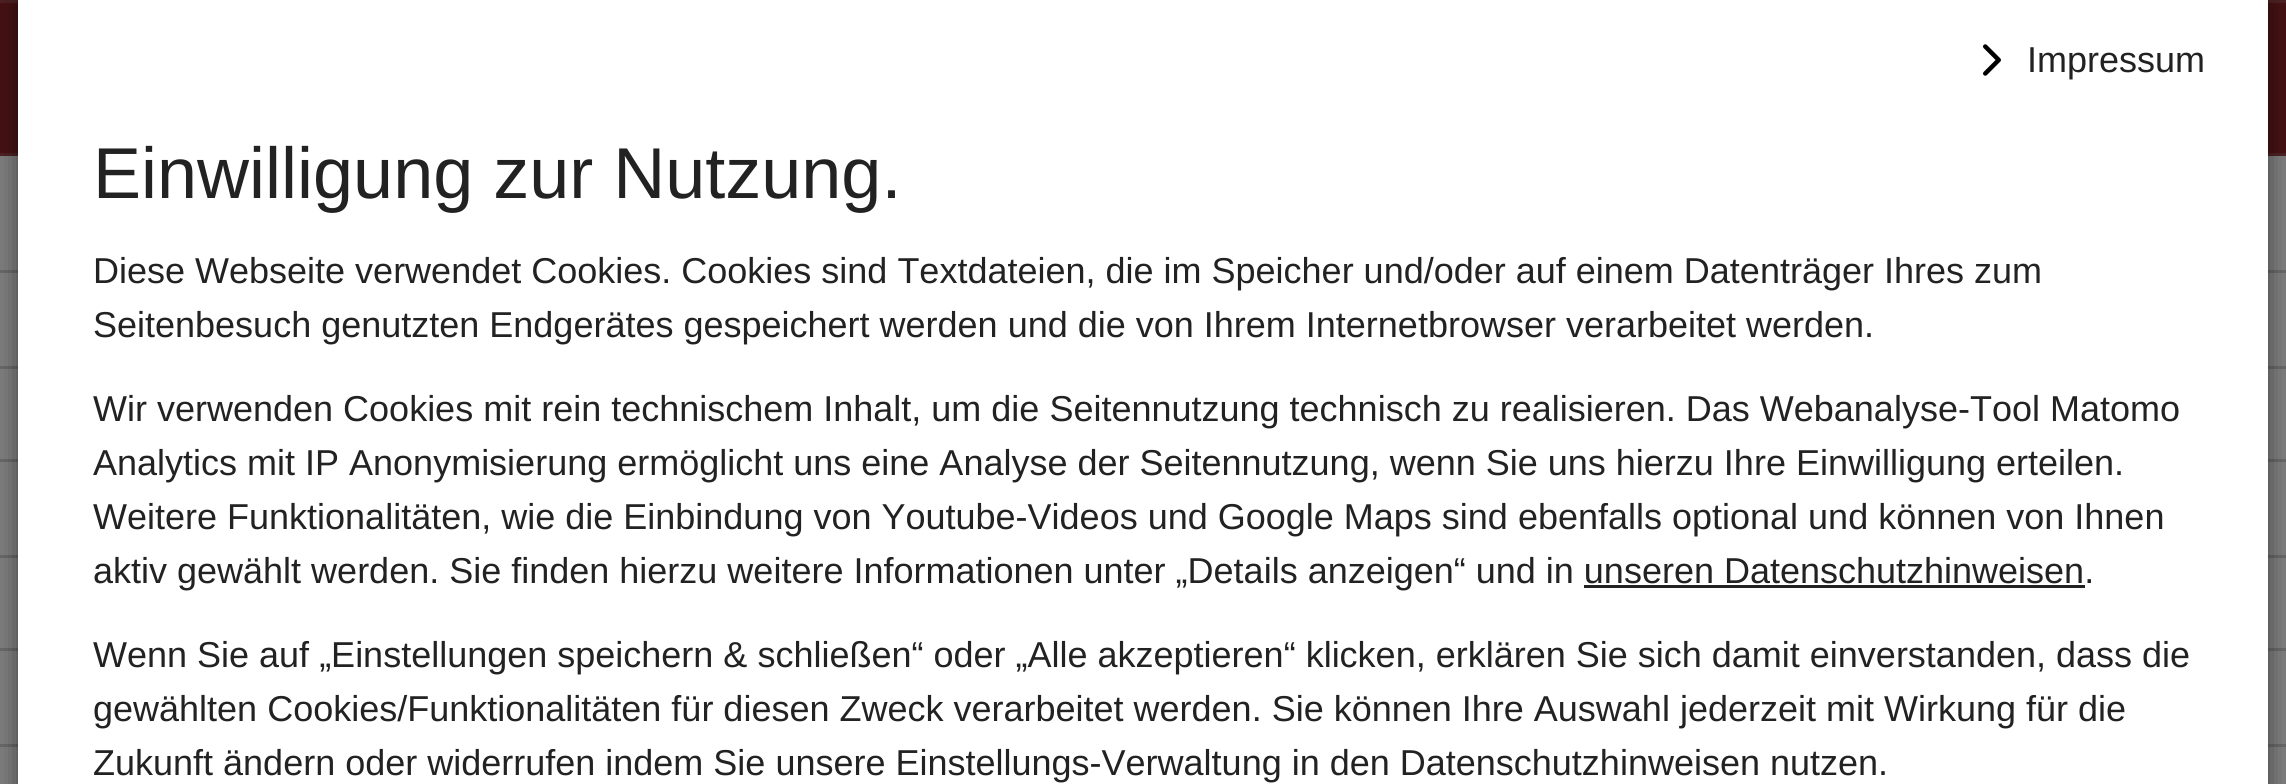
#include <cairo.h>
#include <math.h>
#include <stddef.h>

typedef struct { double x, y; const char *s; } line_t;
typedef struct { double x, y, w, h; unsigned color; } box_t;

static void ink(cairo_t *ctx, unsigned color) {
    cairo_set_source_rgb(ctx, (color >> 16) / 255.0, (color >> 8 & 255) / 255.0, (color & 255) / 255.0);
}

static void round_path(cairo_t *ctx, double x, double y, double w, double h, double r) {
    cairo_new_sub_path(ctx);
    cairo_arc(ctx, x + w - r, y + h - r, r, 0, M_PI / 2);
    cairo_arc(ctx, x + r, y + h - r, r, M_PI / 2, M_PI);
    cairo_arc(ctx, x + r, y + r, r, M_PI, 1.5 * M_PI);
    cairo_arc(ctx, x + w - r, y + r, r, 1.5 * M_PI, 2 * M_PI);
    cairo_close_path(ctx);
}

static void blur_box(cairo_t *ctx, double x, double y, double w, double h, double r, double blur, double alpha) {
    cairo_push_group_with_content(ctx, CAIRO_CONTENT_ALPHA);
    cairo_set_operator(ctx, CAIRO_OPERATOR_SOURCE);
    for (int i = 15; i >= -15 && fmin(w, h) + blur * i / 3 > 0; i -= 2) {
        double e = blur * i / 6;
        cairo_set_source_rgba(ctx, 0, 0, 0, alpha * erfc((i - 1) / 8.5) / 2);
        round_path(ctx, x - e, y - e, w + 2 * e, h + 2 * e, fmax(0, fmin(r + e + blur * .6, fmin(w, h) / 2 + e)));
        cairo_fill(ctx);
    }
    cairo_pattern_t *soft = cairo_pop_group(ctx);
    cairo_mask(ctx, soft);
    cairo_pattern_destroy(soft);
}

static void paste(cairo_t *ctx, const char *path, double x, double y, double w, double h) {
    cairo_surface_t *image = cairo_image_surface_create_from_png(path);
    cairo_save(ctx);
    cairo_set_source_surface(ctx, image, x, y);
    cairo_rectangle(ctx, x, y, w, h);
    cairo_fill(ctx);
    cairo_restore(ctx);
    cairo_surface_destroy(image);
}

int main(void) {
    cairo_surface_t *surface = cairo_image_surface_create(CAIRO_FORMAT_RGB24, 2286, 784);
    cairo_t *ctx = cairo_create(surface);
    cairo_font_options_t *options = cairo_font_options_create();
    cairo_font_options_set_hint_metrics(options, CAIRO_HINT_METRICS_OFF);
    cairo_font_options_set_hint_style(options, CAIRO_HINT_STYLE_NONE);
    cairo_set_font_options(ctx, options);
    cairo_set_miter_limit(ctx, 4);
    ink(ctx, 0x808080);
    cairo_paint(ctx);
    {
        static const box_t items[] = {
            {0, 3, 2286, 150, 0x461113},
            {0, 0, 2286, 3, 0x4E2123},
            {0, 153, 2286, 3, 0x4E2123},
            {0, 270, 2286, 3, 0x6A6A6A},
            {0, 366, 2286, 3, 0x6A6A6A},
            {0, 459, 2286, 3, 0x6A6A6A},
            {0, 555, 2286, 3, 0x6A6A6A},
            {0, 648, 2286, 3, 0x6A6A6A},
            {0, 744, 2286, 3, 0x6A6A6A},
        };
        for (size_t i = 0; i < sizeof items / sizeof *items; i++) {
            ink(ctx, items[i].color);
            cairo_rectangle(ctx, items[i].x, items[i].y, items[i].w, items[i].h);
            cairo_fill(ctx);
        }
    }
    ink(ctx, 0x000000);
    blur_box(ctx, 18, 3, 2250, 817, 0, 12, 0.5);
    ink(ctx, 0xFFFFFF);
    cairo_rectangle(ctx, 18, 0, 2250, 784);
    cairo_fill(ctx);
    paste(ctx, "media/1.png", 1983, 44, 18, 32);
    cairo_select_font_face(ctx, "Liberation Sans", CAIRO_FONT_SLANT_NORMAL, CAIRO_FONT_WEIGHT_NORMAL);
    cairo_set_font_size(ctx, 36);
    ink(ctx, 0x222222);
    cairo_move_to(ctx, 2027, 72);
    cairo_show_text(ctx, "Impressum");
    cairo_set_font_size(ctx, 72);
    cairo_move_to(ctx, 93, 198);
    cairo_show_text(ctx, "Einwilligung zur Nutzung.");
    cairo_set_font_size(ctx, 36);
    {
        static const line_t items[] = {
            {93, 283, "Diese Webseite verwendet Cookies. Cookies sind Textdateien, die im Speicher und/oder auf einem Datenträger Ihres zum"},
            {93, 337, "Seitenbesuch genutzten Endgerätes gespeichert werden und die von Ihrem Internetbrowser verarbeitet werden."},
            {93, 421, "Wir verwenden Cookies mit rein technischem Inhalt, um die Seitennutzung technisch zu realisieren. Das Webanalyse-Tool Matomo"},
            {93, 475, "Analytics mit IP Anonymisierung ermöglicht uns eine Analyse der Seitennutzung, wenn Sie uns hierzu Ihre Einwilligung erteilen."},
            {93, 529, "Weitere Funktionalitäten, wie die Einbindung von Youtube-Videos und Google Maps sind ebenfalls optional und können von Ihnen"},
            {93, 583, "aktiv gewählt werden. Sie finden hierzu weitere Informationen unter „Details anzeigen“ und in unseren Datenschutzhinweisen."},
        };
        for (size_t i = 0; i < sizeof items / sizeof *items; i++) {
            cairo_move_to(ctx, items[i].x, items[i].y);
            cairo_show_text(ctx, items[i].s);
        }
    }
    cairo_rectangle(ctx, 1584, 585, 501, 3);
    cairo_fill(ctx);
    {
        static const line_t items[] = {
            {93, 667, "Wenn Sie auf „Einstellungen speichern & schließen“ oder „Alle akzeptieren“ klicken, erklären Sie sich damit einverstanden, dass die"},
            {93, 721, "gewählten Cookies/Funktionalitäten für diesen Zweck verarbeitet werden. Sie können Ihre Auswahl jederzeit mit Wirkung für die"},
            {93, 775, "Zukunft ändern oder widerrufen indem Sie unsere Einstellungs-Verwaltung in den Datenschutzhinweisen nutzen."},
        };
        for (size_t i = 0; i < sizeof items / sizeof *items; i++) {
            cairo_move_to(ctx, items[i].x, items[i].y);
            cairo_show_text(ctx, items[i].s);
        }
    }
    cairo_surface_write_to_png(surface, "image.png");
    cairo_font_options_destroy(options);
    cairo_destroy(ctx);
    cairo_surface_destroy(surface);
    return 0;
}
